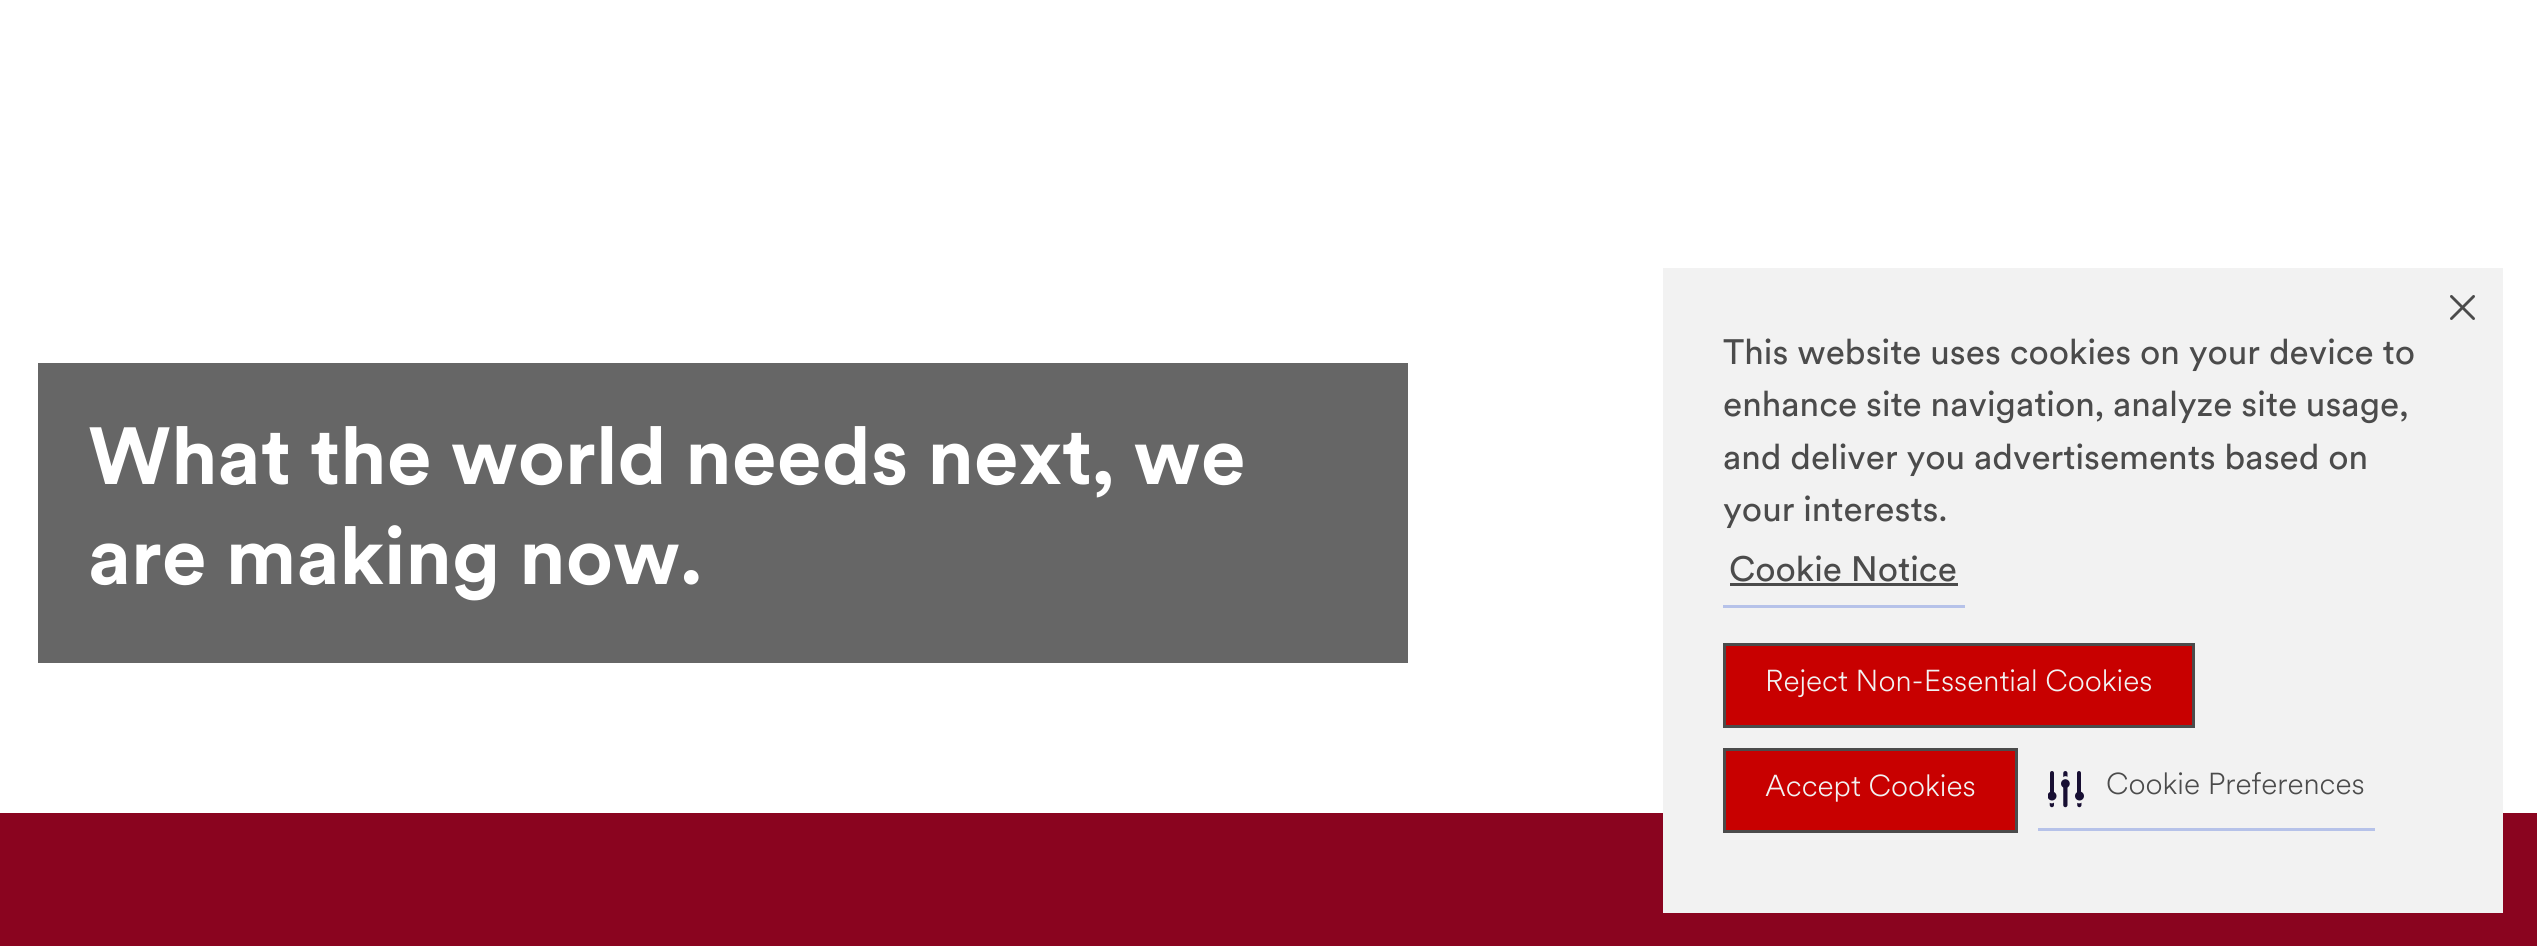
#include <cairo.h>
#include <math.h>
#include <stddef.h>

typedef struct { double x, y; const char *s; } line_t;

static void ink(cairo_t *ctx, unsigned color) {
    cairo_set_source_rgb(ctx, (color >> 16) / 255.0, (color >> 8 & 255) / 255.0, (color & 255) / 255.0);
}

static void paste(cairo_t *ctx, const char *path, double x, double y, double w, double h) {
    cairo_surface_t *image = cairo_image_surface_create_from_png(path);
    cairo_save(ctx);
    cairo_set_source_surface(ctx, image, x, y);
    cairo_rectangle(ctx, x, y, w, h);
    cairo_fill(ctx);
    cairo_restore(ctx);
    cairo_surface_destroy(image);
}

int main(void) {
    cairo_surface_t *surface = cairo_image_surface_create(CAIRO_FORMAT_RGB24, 2537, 946);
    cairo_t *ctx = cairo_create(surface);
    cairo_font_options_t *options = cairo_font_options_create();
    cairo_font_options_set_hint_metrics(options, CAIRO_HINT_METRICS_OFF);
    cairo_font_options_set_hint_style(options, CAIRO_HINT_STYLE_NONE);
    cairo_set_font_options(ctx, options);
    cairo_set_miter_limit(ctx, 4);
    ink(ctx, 0xFFFFFF);
    cairo_paint(ctx);
    ink(ctx, 0x666666);
    cairo_rectangle(ctx, 38, 363, 1370, 300);
    cairo_fill(ctx);
    cairo_select_font_face(ctx, "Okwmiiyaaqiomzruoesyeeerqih", CAIRO_FONT_SLANT_NORMAL, CAIRO_FONT_WEIGHT_BOLD);
    cairo_set_font_size(ctx, 80);
    ink(ctx, 0xFFFFFF);
    cairo_move_to(ctx, 88, 484);
    cairo_show_text(ctx, "What the world needs next, we");
    cairo_move_to(ctx, 88, 584);
    cairo_show_text(ctx, "are making now.");
    ink(ctx, 0x8A041F);
    cairo_rectangle(ctx, 0, 813, 2537, 133);
    cairo_fill(ctx);
    ink(ctx, 0xF2F2F2);
    cairo_rectangle(ctx, 1663, 268, 840, 645);
    cairo_fill(ctx);
    cairo_select_font_face(ctx, "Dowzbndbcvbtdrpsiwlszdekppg", CAIRO_FONT_SLANT_NORMAL, CAIRO_FONT_WEIGHT_NORMAL);
    cairo_set_font_size(ctx, 35);
    ink(ctx, 0x4B4B4B);
    {
        static const line_t items[] = {
            {1723, 364, "This website uses cookies on your device to"},
            {1723, 416, "enhance site navigation, analyze site usage,"},
            {1723, 469, "and deliver you advertisements based on"},
            {1723, 521, "your interests."},
        };
        for (size_t i = 0; i < sizeof items / sizeof *items; i++) {
            cairo_move_to(ctx, items[i].x, items[i].y);
            cairo_show_text(ctx, items[i].s);
        }
    }
    ink(ctx, 0xB6C2E9);
    cairo_rectangle(ctx, 1723, 605, 242, 3);
    cairo_fill(ctx);
    ink(ctx, 0x4B4B4B);
    cairo_move_to(ctx, 1729, 581);
    cairo_show_text(ctx, "Cookie Notice");
    cairo_rectangle(ctx, 1730, 583, 228, 3);
    cairo_fill(ctx);
    paste(ctx, "media/1.png", 2450, 295, 25, 25);
    ink(ctx, 0xC80000);
    cairo_rectangle(ctx, 1724.5, 644.5, 469, 82);
    cairo_fill_preserve(ctx);
    ink(ctx, 0x4B4B4B);
    cairo_set_line_width(ctx, 3);
    cairo_stroke(ctx);
    cairo_select_font_face(ctx, "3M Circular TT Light", CAIRO_FONT_SLANT_NORMAL, CAIRO_FONT_WEIGHT_NORMAL);
    cairo_set_font_size(ctx, 30);
    ink(ctx, 0xF2F2F2);
    cairo_move_to(ctx, 1765, 691);
    cairo_show_text(ctx, "Reject Non-Essential Cookies");
    ink(ctx, 0xC80000);
    cairo_rectangle(ctx, 1724.5, 749.5, 292, 82);
    cairo_fill_preserve(ctx);
    ink(ctx, 0x4B4B4B);
    cairo_stroke(ctx);
    ink(ctx, 0xF2F2F2);
    cairo_move_to(ctx, 1765, 796);
    cairo_show_text(ctx, "Accept Cookies");
    ink(ctx, 0xB6C2E9);
    cairo_rectangle(ctx, 2038, 828, 337, 3);
    cairo_fill(ctx);
    paste(ctx, "media/2.png", 2048, 771, 36, 37);
    ink(ctx, 0x4B4B4B);
    cairo_move_to(ctx, 2106, 794);
    cairo_show_text(ctx, "Cookie Preferences");
    cairo_surface_write_to_png(surface, "image.png");
    cairo_font_options_destroy(options);
    cairo_destroy(ctx);
    cairo_surface_destroy(surface);
    return 0;
}
